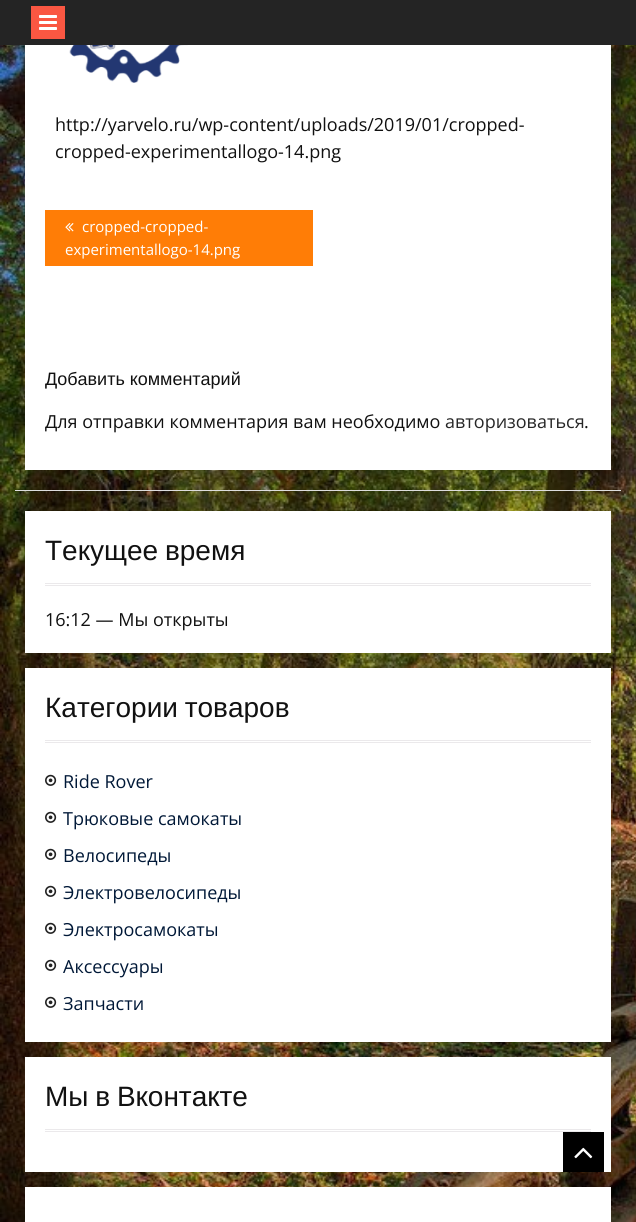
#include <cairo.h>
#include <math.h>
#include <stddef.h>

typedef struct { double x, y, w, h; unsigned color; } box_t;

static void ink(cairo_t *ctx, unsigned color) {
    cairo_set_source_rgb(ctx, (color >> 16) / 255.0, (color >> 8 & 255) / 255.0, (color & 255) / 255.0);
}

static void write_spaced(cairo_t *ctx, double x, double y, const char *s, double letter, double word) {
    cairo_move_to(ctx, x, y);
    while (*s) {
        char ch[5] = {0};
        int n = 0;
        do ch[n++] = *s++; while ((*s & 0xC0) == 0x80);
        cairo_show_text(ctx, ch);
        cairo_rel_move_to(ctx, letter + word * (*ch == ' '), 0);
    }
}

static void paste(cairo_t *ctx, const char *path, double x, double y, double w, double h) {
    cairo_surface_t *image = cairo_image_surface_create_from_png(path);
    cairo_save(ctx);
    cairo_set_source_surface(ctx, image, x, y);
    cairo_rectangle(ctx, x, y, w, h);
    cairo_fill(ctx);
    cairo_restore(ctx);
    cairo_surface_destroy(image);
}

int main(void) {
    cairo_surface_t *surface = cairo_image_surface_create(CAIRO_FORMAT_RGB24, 636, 1222);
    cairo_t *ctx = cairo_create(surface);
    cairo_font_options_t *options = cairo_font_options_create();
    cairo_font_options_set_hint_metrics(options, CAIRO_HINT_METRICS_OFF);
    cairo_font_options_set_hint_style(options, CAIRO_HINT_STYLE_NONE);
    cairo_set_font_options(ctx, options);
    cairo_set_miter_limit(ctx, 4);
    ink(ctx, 0xFFFFFF);
    cairo_paint(ctx);
    paste(ctx, "media/1.png", 0, 45, 636, 1177);
    ink(ctx, 0x242424);
    cairo_rectangle(ctx, 0, 0, 636, 45);
    cairo_fill(ctx);
    ink(ctx, 0xFA5742);
    cairo_rectangle(ctx, 31, 6, 34, 33);
    cairo_fill(ctx);
    paste(ctx, "media/2.png", 39, 15, 18, 15);
    ink(ctx, 0xDDDDDD);
    cairo_rectangle(ctx, 15, 490, 606, 1);
    cairo_fill(ctx);
    ink(ctx, 0xFFFFFF);
    cairo_rectangle(ctx, 25, 45, 586, 425);
    cairo_fill(ctx);
    paste(ctx, "media/3.png", 69, 45, 119, 38);
    cairo_select_font_face(ctx, "Open Sans", CAIRO_FONT_SLANT_NORMAL, CAIRO_FONT_WEIGHT_NORMAL);
    cairo_set_font_size(ctx, 18);
    ink(ctx, 0x111111);
    cairo_move_to(ctx, 55, 131);
    cairo_show_text(ctx, "http://yarvelo.ru/wp-content/uploads/2019/01/cropped-");
    cairo_move_to(ctx, 55, 158);
    cairo_show_text(ctx, "cropped-experimentallogo-14.png");
    ink(ctx, 0xFF7D06);
    cairo_rectangle(ctx, 45, 210, 268, 56);
    cairo_fill(ctx);
    paste(ctx, "media/4.png", 65, 223, 9, 9);
    cairo_set_font_size(ctx, 15);
    ink(ctx, 0xFFFFFF);
    cairo_move_to(ctx, 82, 232);
    cairo_show_text(ctx, "cropped-cropped-");
    cairo_move_to(ctx, 65, 255);
    cairo_show_text(ctx, "experimentallogo-14.png");
    cairo_save(ctx);
    cairo_rectangle(ctx, 45, 366, 546, 84);
    cairo_clip(ctx);
    cairo_select_font_face(ctx, "Liberation Sans", CAIRO_FONT_SLANT_NORMAL, CAIRO_FONT_WEIGHT_NORMAL);
    cairo_set_font_size(ctx, 18);
    ink(ctx, 0x111111);
    cairo_move_to(ctx, 45, 385);
    cairo_show_text(ctx, "Добавить комментарий");
    cairo_select_font_face(ctx, "Open Sans", CAIRO_FONT_SLANT_NORMAL, CAIRO_FONT_WEIGHT_NORMAL);
    cairo_move_to(ctx, 45, 428);
    cairo_show_text(ctx, "Для отправки комментария вам необходимо");
    cairo_restore(ctx);
    cairo_set_font_size(ctx, 18);
    ink(ctx, 0x272727);
    cairo_move_to(ctx, 445, 428);
    cairo_show_text(ctx, "авторизоваться");
    ink(ctx, 0x111111);
    cairo_move_to(ctx, 584, 428);
    cairo_show_text(ctx, ".");
    {
        static const box_t items[] = {
            {25, 511, 586, 142, 0xFFFFFF},
            {45, 583, 546, 1, 0xEBE9EB},
            {45, 585, 546, 1, 0xEBE9EB},
        };
        for (size_t i = 0; i < sizeof items / sizeof *items; i++) {
            ink(ctx, items[i].color);
            cairo_rectangle(ctx, items[i].x, items[i].y, items[i].w, items[i].h);
            cairo_fill(ctx);
        }
    }
    cairo_select_font_face(ctx, "Liberation Sans", CAIRO_FONT_SLANT_NORMAL, CAIRO_FONT_WEIGHT_NORMAL);
    cairo_set_font_size(ctx, 28);
    ink(ctx, 0x111111);
    write_spaced(ctx, 45, 560, "Текущее время", 0, -1);
    cairo_select_font_face(ctx, "Open Sans", CAIRO_FONT_SLANT_NORMAL, CAIRO_FONT_WEIGHT_NORMAL);
    cairo_set_font_size(ctx, 18);
    cairo_move_to(ctx, 45, 626);
    cairo_show_text(ctx, "16:12 — Мы открыты");
    {
        static const box_t items[] = {
            {25, 668, 586, 374, 0xFFFFFF},
            {45, 740, 546, 1, 0xEBE9EB},
            {45, 742, 546, 1, 0xEBE9EB},
        };
        for (size_t i = 0; i < sizeof items / sizeof *items; i++) {
            ink(ctx, items[i].color);
            cairo_rectangle(ctx, items[i].x, items[i].y, items[i].w, items[i].h);
            cairo_fill(ctx);
        }
    }
    cairo_select_font_face(ctx, "Liberation Sans", CAIRO_FONT_SLANT_NORMAL, CAIRO_FONT_WEIGHT_NORMAL);
    cairo_set_font_size(ctx, 28);
    ink(ctx, 0x111111);
    write_spaced(ctx, 45, 717, "Категории товаров", 0, -1);
    paste(ctx, "media/5.png", 45, 774, 12, 12);
    cairo_select_font_face(ctx, "Open Sans", CAIRO_FONT_SLANT_NORMAL, CAIRO_FONT_WEIGHT_NORMAL);
    cairo_set_font_size(ctx, 18);
    ink(ctx, 0x001837);
    cairo_move_to(ctx, 63, 788);
    cairo_show_text(ctx, "Ride Rover");
    paste(ctx, "media/5.png", 45, 811, 12, 12);
    cairo_move_to(ctx, 63, 825);
    cairo_show_text(ctx, "Трюковые самокаты");
    paste(ctx, "media/5.png", 45, 848, 12, 12);
    cairo_move_to(ctx, 63, 862);
    cairo_show_text(ctx, "Велосипеды");
    paste(ctx, "media/5.png", 45, 885, 12, 12);
    cairo_move_to(ctx, 63, 899);
    cairo_show_text(ctx, "Электровелосипеды");
    paste(ctx, "media/5.png", 45, 922, 12, 12);
    cairo_move_to(ctx, 63, 936);
    cairo_show_text(ctx, "Электросамокаты");
    paste(ctx, "media/5.png", 45, 959, 12, 12);
    cairo_move_to(ctx, 63, 973);
    cairo_show_text(ctx, "Аксессуары");
    paste(ctx, "media/5.png", 45, 996, 12, 12);
    cairo_move_to(ctx, 63, 1010);
    cairo_show_text(ctx, "Запчасти");
    {
        static const box_t items[] = {
            {25, 1057, 586, 115, 0xFFFFFF},
            {45, 1129, 546, 1, 0xEBE9EB},
            {45, 1131, 546, 1, 0xEBE9EB},
        };
        for (size_t i = 0; i < sizeof items / sizeof *items; i++) {
            ink(ctx, items[i].color);
            cairo_rectangle(ctx, items[i].x, items[i].y, items[i].w, items[i].h);
            cairo_fill(ctx);
        }
    }
    cairo_select_font_face(ctx, "Liberation Sans", CAIRO_FONT_SLANT_NORMAL, CAIRO_FONT_WEIGHT_NORMAL);
    cairo_set_font_size(ctx, 28);
    ink(ctx, 0x111111);
    write_spaced(ctx, 45, 1106, "Мы в Вконтакте", 0, -1);
    ink(ctx, 0xFFFFFF);
    cairo_rectangle(ctx, 25, 1187, 586, 35);
    cairo_fill(ctx);
    ink(ctx, 0x000000);
    cairo_rectangle(ctx, 563, 1132, 41, 40);
    cairo_fill(ctx);
    paste(ctx, "media/6.png", 574, 1147, 19, 12);
    cairo_surface_write_to_png(surface, "image.png");
    cairo_font_options_destroy(options);
    cairo_destroy(ctx);
    cairo_surface_destroy(surface);
    return 0;
}
